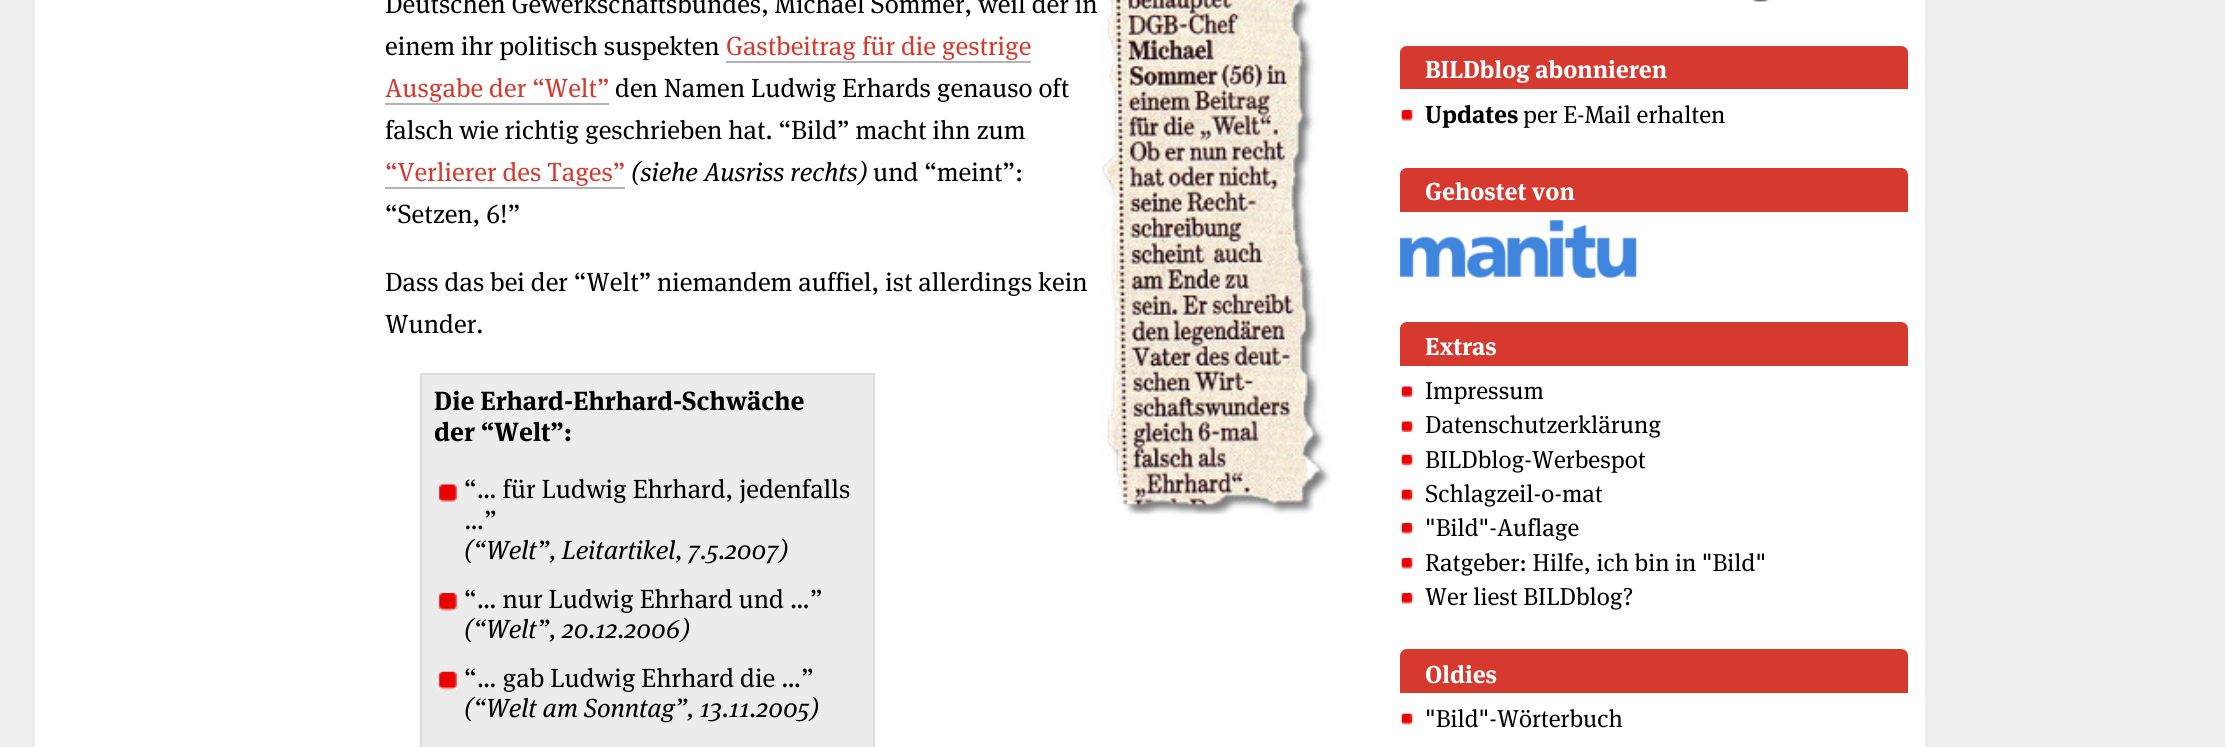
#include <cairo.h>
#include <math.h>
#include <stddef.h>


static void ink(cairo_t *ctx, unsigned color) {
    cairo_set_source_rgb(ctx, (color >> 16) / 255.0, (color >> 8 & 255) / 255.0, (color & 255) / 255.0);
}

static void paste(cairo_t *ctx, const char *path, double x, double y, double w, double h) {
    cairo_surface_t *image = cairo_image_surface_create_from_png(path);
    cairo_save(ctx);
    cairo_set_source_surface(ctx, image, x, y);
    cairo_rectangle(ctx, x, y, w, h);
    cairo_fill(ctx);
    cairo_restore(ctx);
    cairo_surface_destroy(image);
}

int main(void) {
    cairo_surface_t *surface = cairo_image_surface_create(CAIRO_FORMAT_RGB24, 2225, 747);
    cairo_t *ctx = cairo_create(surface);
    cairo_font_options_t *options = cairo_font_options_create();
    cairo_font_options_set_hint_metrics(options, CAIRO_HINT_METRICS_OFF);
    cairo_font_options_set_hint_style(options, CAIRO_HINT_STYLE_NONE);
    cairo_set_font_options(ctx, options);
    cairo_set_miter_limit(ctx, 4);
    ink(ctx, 0xEEEEEE);
    cairo_paint(ctx);
    ink(ctx, 0xFFFFFF);
    cairo_rectangle(ctx, 35, 0, 1890, 747);
    cairo_fill(ctx);
    cairo_select_font_face(ctx, "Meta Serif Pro", CAIRO_FONT_SLANT_NORMAL, CAIRO_FONT_WEIGHT_NORMAL);
    cairo_set_font_size(ctx, 26.25);
    ink(ctx, 0x050000);
    cairo_move_to(ctx, 385, 13);
    cairo_show_text(ctx, "Deutschen Gewerkschaftsbundes, Michael Sommer, weil der in");
    cairo_move_to(ctx, 385, 55);
    cairo_show_text(ctx, "einem ihr politisch suspekten");
    ink(ctx, 0xD6392E);
    cairo_move_to(ctx, 726, 55);
    cairo_show_text(ctx, "Gastbeitrag für die gestrige");
    ink(ctx, 0xB3B3B3);
    cairo_rectangle(ctx, 726, 61, 305, 2);
    cairo_fill(ctx);
    ink(ctx, 0xD6392E);
    cairo_move_to(ctx, 385, 97);
    cairo_show_text(ctx, "Ausgabe der “Welt”");
    ink(ctx, 0xB3B3B3);
    cairo_rectangle(ctx, 385, 103, 224, 2);
    cairo_fill(ctx);
    ink(ctx, 0x050000);
    cairo_move_to(ctx, 615, 97);
    cairo_show_text(ctx, "den Namen Ludwig Erhards genauso oft");
    cairo_move_to(ctx, 385, 139);
    cairo_show_text(ctx, "falsch wie richtig geschrieben hat. “Bild” macht ihn zum");
    ink(ctx, 0xD6392E);
    cairo_move_to(ctx, 385, 181);
    cairo_show_text(ctx, "“Verlierer des Tages”");
    ink(ctx, 0xB3B3B3);
    cairo_rectangle(ctx, 385, 187, 240, 2);
    cairo_fill(ctx);
    cairo_select_font_face(ctx, "Meta Serif Pro", CAIRO_FONT_SLANT_ITALIC, CAIRO_FONT_WEIGHT_NORMAL);
    ink(ctx, 0x050000);
    cairo_move_to(ctx, 631, 181);
    cairo_show_text(ctx, "(siehe Ausriss rechts)");
    cairo_select_font_face(ctx, "Meta Serif Pro", CAIRO_FONT_SLANT_NORMAL, CAIRO_FONT_WEIGHT_NORMAL);
    cairo_move_to(ctx, 873, 181);
    cairo_show_text(ctx, "und “meint”:");
    cairo_move_to(ctx, 385, 223);
    cairo_show_text(ctx, "“Setzen, 6!”");
    paste(ctx, "media/1.png", 1102, 0, 228, 515);
    cairo_move_to(ctx, 385, 291);
    cairo_show_text(ctx, "Dass das bei der “Welt” niemandem auffiel, ist allerdings kein");
    cairo_move_to(ctx, 385, 333);
    cairo_show_text(ctx, "Wunder.");
    ink(ctx, 0xECECEC);
    cairo_rectangle(ctx, 421, 374, 453, 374);
    cairo_fill_preserve(ctx);
    ink(ctx, 0xDDDDDD);
    cairo_stroke(ctx);
    cairo_select_font_face(ctx, "Meta Serif Pro", CAIRO_FONT_SLANT_NORMAL, CAIRO_FONT_WEIGHT_BOLD);
    ink(ctx, 0x050000);
    cairo_move_to(ctx, 434, 410);
    cairo_show_text(ctx, "Die Erhard-Ehrhard-Schwäche");
    cairo_move_to(ctx, 434, 441);
    cairo_show_text(ctx, "der “Welt”:");
    paste(ctx, "media/2.png", 439, 484, 18, 18);
    cairo_select_font_face(ctx, "Meta Serif Pro", CAIRO_FONT_SLANT_NORMAL, CAIRO_FONT_WEIGHT_NORMAL);
    cairo_move_to(ctx, 464, 498);
    cairo_show_text(ctx, "“… für Ludwig Ehrhard, jedenfalls");
    cairo_move_to(ctx, 464, 529);
    cairo_show_text(ctx, "…”");
    cairo_select_font_face(ctx, "Meta Serif Pro", CAIRO_FONT_SLANT_ITALIC, CAIRO_FONT_WEIGHT_NORMAL);
    cairo_move_to(ctx, 464, 559);
    cairo_show_text(ctx, "(“Welt”, Leitartikel, 7.5.2007)");
    paste(ctx, "media/3.png", 439, 593, 18, 18);
    cairo_select_font_face(ctx, "Meta Serif Pro", CAIRO_FONT_SLANT_NORMAL, CAIRO_FONT_WEIGHT_NORMAL);
    cairo_move_to(ctx, 464, 608);
    cairo_show_text(ctx, "“… nur Ludwig Ehrhard und …”");
    cairo_select_font_face(ctx, "Meta Serif Pro", CAIRO_FONT_SLANT_ITALIC, CAIRO_FONT_WEIGHT_NORMAL);
    cairo_move_to(ctx, 464, 638);
    cairo_show_text(ctx, "(“Welt”, 20.12.2006)");
    paste(ctx, "media/4.png", 439, 671, 18, 19);
    cairo_select_font_face(ctx, "Meta Serif Pro", CAIRO_FONT_SLANT_NORMAL, CAIRO_FONT_WEIGHT_NORMAL);
    cairo_move_to(ctx, 464, 687);
    cairo_show_text(ctx, "“… gab Ludwig Ehrhard die …”");
    cairo_select_font_face(ctx, "Meta Serif Pro", CAIRO_FONT_SLANT_ITALIC, CAIRO_FONT_WEIGHT_NORMAL);
    cairo_move_to(ctx, 464, 717);
    cairo_show_text(ctx, "(“Welt am Sonntag”, 13.11.2005)");
    paste(ctx, "media/5.png", 1752, 0, 17, 2);
    ink(ctx, 0xD6392E);
    cairo_new_path(ctx);
    cairo_move_to(ctx, 1407, 46);
    cairo_line_to(ctx, 1901, 46);
    cairo_curve_to(ctx, 1905, 46, 1908, 49, 1908, 53);
    cairo_line_to(ctx, 1908, 89);
    cairo_line_to(ctx, 1400, 89);
    cairo_line_to(ctx, 1400, 53);
    cairo_curve_to(ctx, 1400, 49, 1403, 46, 1407, 46);
    cairo_close_path(ctx);
    cairo_fill(ctx);
    cairo_select_font_face(ctx, "Meta Serif Pro", CAIRO_FONT_SLANT_NORMAL, CAIRO_FONT_WEIGHT_BOLD);
    cairo_set_font_size(ctx, 24.5);
    ink(ctx, 0xFFFFFF);
    cairo_move_to(ctx, 1425, 78);
    cairo_show_text(ctx, "BILDblog abonnieren");
    paste(ctx, "media/6.png", 1401, 110, 12, 11);
    ink(ctx, 0x050000);
    cairo_move_to(ctx, 1425, 123);
    cairo_show_text(ctx, "Updates");
    cairo_select_font_face(ctx, "Meta Serif Pro", CAIRO_FONT_SLANT_NORMAL, CAIRO_FONT_WEIGHT_NORMAL);
    cairo_move_to(ctx, 1523, 123);
    cairo_show_text(ctx, "per E-Mail erhalten");
    ink(ctx, 0xD6392E);
    cairo_new_path(ctx);
    cairo_move_to(ctx, 1407, 168);
    cairo_line_to(ctx, 1901, 168);
    cairo_curve_to(ctx, 1905, 168, 1908, 171, 1908, 175);
    cairo_line_to(ctx, 1908, 212);
    cairo_line_to(ctx, 1400, 212);
    cairo_line_to(ctx, 1400, 175);
    cairo_curve_to(ctx, 1400, 171, 1403, 168, 1407, 168);
    cairo_close_path(ctx);
    cairo_fill(ctx);
    cairo_select_font_face(ctx, "Meta Serif Pro", CAIRO_FONT_SLANT_NORMAL, CAIRO_FONT_WEIGHT_BOLD);
    ink(ctx, 0xFFFFFF);
    cairo_move_to(ctx, 1425, 200);
    cairo_show_text(ctx, "Gehostet von");
    paste(ctx, "media/7.png", 1400, 220, 237, 58);
    ink(ctx, 0xD6392E);
    cairo_new_path(ctx);
    cairo_move_to(ctx, 1407, 322);
    cairo_line_to(ctx, 1901, 322);
    cairo_curve_to(ctx, 1905, 322, 1908, 325, 1908, 329);
    cairo_line_to(ctx, 1908, 366);
    cairo_line_to(ctx, 1400, 366);
    cairo_line_to(ctx, 1400, 329);
    cairo_curve_to(ctx, 1400, 325, 1403, 322, 1407, 322);
    cairo_close_path(ctx);
    cairo_fill(ctx);
    ink(ctx, 0xFFFFFF);
    cairo_move_to(ctx, 1425, 355);
    cairo_show_text(ctx, "Extras");
    paste(ctx, "media/8.png", 1401, 386, 12, 11);
    cairo_select_font_face(ctx, "Meta Serif Pro", CAIRO_FONT_SLANT_NORMAL, CAIRO_FONT_WEIGHT_NORMAL);
    ink(ctx, 0x050000);
    cairo_move_to(ctx, 1425, 399);
    cairo_show_text(ctx, "Impressum");
    paste(ctx, "media/8.png", 1401, 421, 12, 11);
    cairo_move_to(ctx, 1425, 433);
    cairo_show_text(ctx, "Datenschutzerklärung");
    paste(ctx, "media/9.png", 1401, 454, 12, 12);
    cairo_move_to(ctx, 1425, 468);
    cairo_show_text(ctx, "BILDblog-Werbespot");
    paste(ctx, "media/9.png", 1401, 489, 12, 12);
    cairo_move_to(ctx, 1425, 502);
    cairo_show_text(ctx, "Schlagzeil-o-mat");
    paste(ctx, "media/6.png", 1401, 523, 12, 11);
    cairo_move_to(ctx, 1425, 536);
    cairo_show_text(ctx, "\"Bild\"-Auflage");
    paste(ctx, "media/6.png", 1401, 558, 12, 11);
    cairo_move_to(ctx, 1425, 571);
    cairo_show_text(ctx, "Ratgeber: Hilfe, ich bin in \"Bild\"");
    paste(ctx, "media/6.png", 1401, 593, 12, 11);
    cairo_move_to(ctx, 1425, 605);
    cairo_show_text(ctx, "Wer liest BILDblog?");
    ink(ctx, 0xD6392E);
    cairo_new_path(ctx);
    cairo_move_to(ctx, 1407, 649);
    cairo_line_to(ctx, 1901, 649);
    cairo_curve_to(ctx, 1905, 649, 1908, 652, 1908, 656);
    cairo_line_to(ctx, 1908, 693);
    cairo_line_to(ctx, 1400, 693);
    cairo_line_to(ctx, 1400, 656);
    cairo_curve_to(ctx, 1400, 652, 1403, 649, 1407, 649);
    cairo_close_path(ctx);
    cairo_fill(ctx);
    cairo_select_font_face(ctx, "Meta Serif Pro", CAIRO_FONT_SLANT_NORMAL, CAIRO_FONT_WEIGHT_BOLD);
    ink(ctx, 0xFFFFFF);
    cairo_move_to(ctx, 1425, 683);
    cairo_show_text(ctx, "Oldies");
    paste(ctx, "media/9.png", 1401, 713, 12, 12);
    cairo_select_font_face(ctx, "Meta Serif Pro", CAIRO_FONT_SLANT_NORMAL, CAIRO_FONT_WEIGHT_NORMAL);
    ink(ctx, 0x050000);
    cairo_move_to(ctx, 1425, 727);
    cairo_show_text(ctx, "\"Bild\"-Wörterbuch");
    cairo_surface_write_to_png(surface, "image.png");
    cairo_font_options_destroy(options);
    cairo_destroy(ctx);
    cairo_surface_destroy(surface);
    return 0;
}
